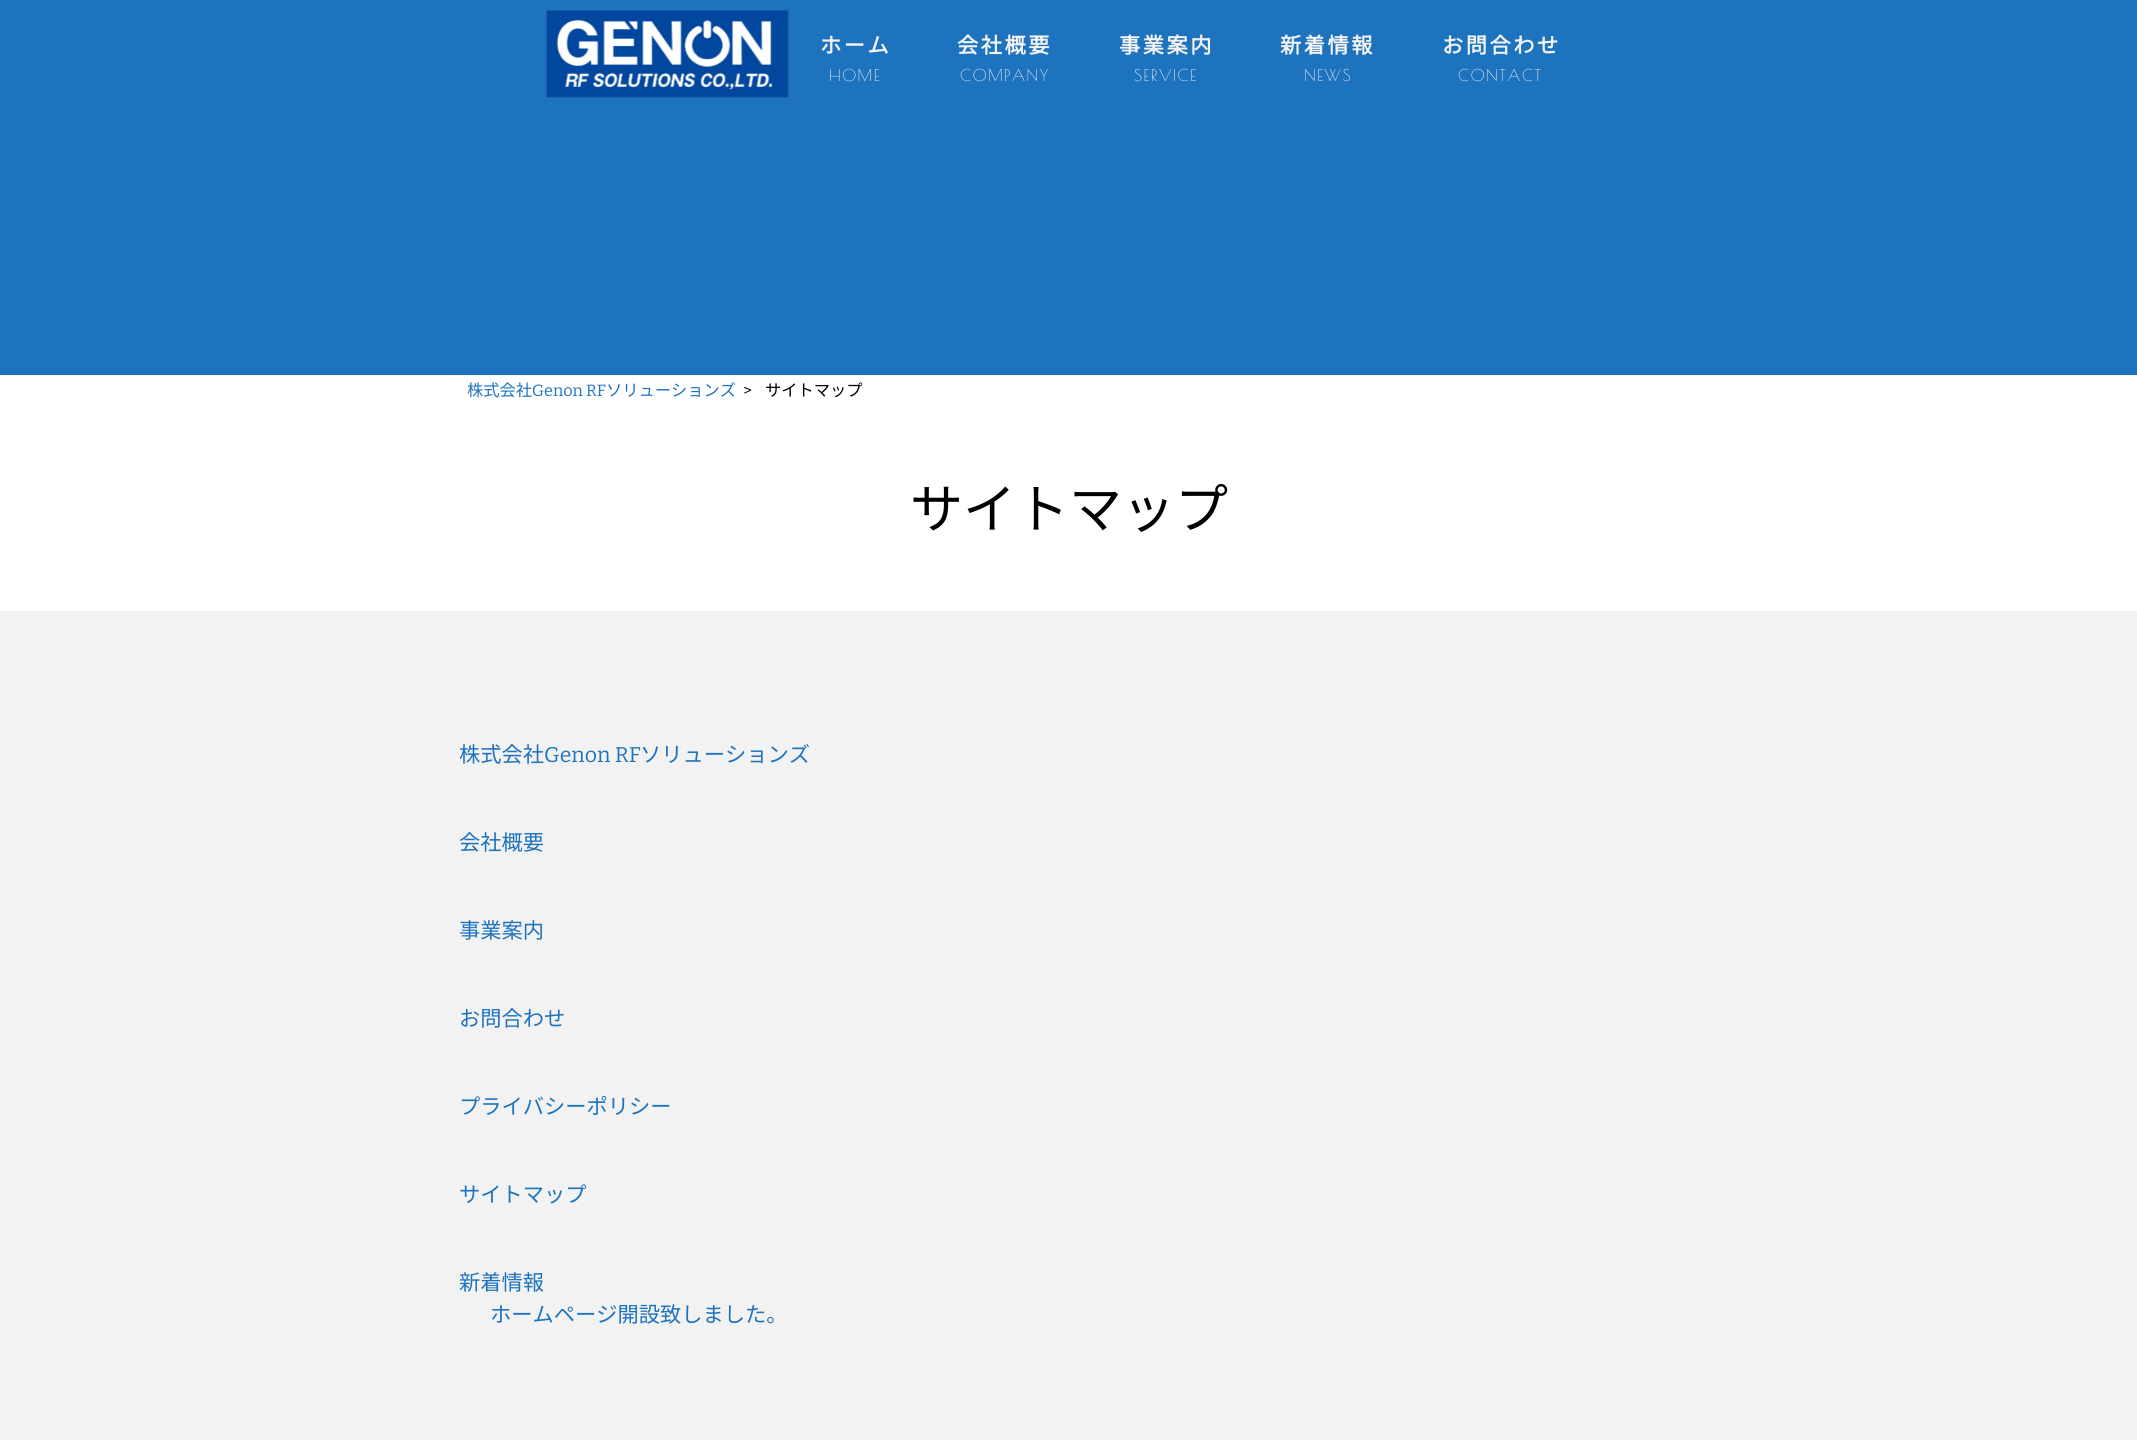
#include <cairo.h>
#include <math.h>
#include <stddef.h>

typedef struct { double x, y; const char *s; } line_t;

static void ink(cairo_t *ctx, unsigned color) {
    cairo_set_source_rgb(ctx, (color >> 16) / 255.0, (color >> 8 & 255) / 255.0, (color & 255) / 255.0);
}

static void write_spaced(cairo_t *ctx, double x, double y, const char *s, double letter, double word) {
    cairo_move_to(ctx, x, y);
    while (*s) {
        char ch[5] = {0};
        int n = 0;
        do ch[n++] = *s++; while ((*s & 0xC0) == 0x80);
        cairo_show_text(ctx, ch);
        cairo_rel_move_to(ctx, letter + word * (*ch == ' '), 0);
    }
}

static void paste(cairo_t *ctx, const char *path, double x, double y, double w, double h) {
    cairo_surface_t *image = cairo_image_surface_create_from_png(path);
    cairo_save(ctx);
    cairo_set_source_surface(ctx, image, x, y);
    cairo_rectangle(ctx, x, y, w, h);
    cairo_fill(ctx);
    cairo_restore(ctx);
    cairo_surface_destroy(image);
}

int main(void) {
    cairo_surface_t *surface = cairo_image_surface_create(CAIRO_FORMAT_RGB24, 2137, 1440);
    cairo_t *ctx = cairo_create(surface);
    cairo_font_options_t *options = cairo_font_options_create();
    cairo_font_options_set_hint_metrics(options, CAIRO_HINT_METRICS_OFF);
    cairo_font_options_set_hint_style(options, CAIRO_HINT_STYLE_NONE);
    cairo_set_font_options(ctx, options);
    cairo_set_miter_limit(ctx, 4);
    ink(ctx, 0xFFFFFF);
    cairo_paint(ctx);
    ink(ctx, 0x1E73BE);
    cairo_rectangle(ctx, 0, 0, 2137, 375);
    cairo_fill(ctx);
    paste(ctx, "media/1.png", 546, 10, 243, 88);
    cairo_select_font_face(ctx, "Noto Sans JP", CAIRO_FONT_SLANT_NORMAL, CAIRO_FONT_WEIGHT_BOLD);
    cairo_set_font_size(ctx, 21.25);
    ink(ctx, 0xF2F2F2);
    write_spaced(ctx, 820, 53, "ホーム", 2.5, 0);
    cairo_select_font_face(ctx, "Poiret One", CAIRO_FONT_SLANT_NORMAL, CAIRO_FONT_WEIGHT_NORMAL);
    cairo_set_font_size(ctx, 16);
    write_spaced(ctx, 829, 81, "HOME", 1.5, 0);
    cairo_select_font_face(ctx, "Noto Sans JP", CAIRO_FONT_SLANT_NORMAL, CAIRO_FONT_WEIGHT_BOLD);
    cairo_set_font_size(ctx, 21.25);
    write_spaced(ctx, 957, 53, "会社概要", 2.5, 0);
    cairo_select_font_face(ctx, "Poiret One", CAIRO_FONT_SLANT_NORMAL, CAIRO_FONT_WEIGHT_NORMAL);
    cairo_set_font_size(ctx, 16);
    write_spaced(ctx, 960, 81, "COMPANY", 1.5, 0);
    cairo_select_font_face(ctx, "Noto Sans JP", CAIRO_FONT_SLANT_NORMAL, CAIRO_FONT_WEIGHT_BOLD);
    cairo_set_font_size(ctx, 21.25);
    write_spaced(ctx, 1119, 53, "事業案内", 2.5, 0);
    cairo_select_font_face(ctx, "Poiret One", CAIRO_FONT_SLANT_NORMAL, CAIRO_FONT_WEIGHT_NORMAL);
    cairo_set_font_size(ctx, 16);
    write_spaced(ctx, 1134, 81, "SERVICE", 1.5, 0);
    cairo_select_font_face(ctx, "Noto Sans JP", CAIRO_FONT_SLANT_NORMAL, CAIRO_FONT_WEIGHT_BOLD);
    cairo_set_font_size(ctx, 21.25);
    write_spaced(ctx, 1280, 53, "新着情報", 2.5, 0);
    cairo_select_font_face(ctx, "Poiret One", CAIRO_FONT_SLANT_NORMAL, CAIRO_FONT_WEIGHT_NORMAL);
    cairo_set_font_size(ctx, 16);
    write_spaced(ctx, 1304, 81, "NEWS", 1.5, 0);
    cairo_select_font_face(ctx, "Noto Sans JP", CAIRO_FONT_SLANT_NORMAL, CAIRO_FONT_WEIGHT_BOLD);
    cairo_set_font_size(ctx, 21.25);
    write_spaced(ctx, 1442, 53, "お問合わせ", 2.5, 0);
    cairo_select_font_face(ctx, "Poiret One", CAIRO_FONT_SLANT_NORMAL, CAIRO_FONT_WEIGHT_NORMAL);
    cairo_set_font_size(ctx, 16);
    write_spaced(ctx, 1458, 81, "CONTACT", 1.5, 0);
    cairo_select_font_face(ctx, "Noto Sans JP Thin", CAIRO_FONT_SLANT_NORMAL, CAIRO_FONT_WEIGHT_NORMAL);
    cairo_set_font_size(ctx, 16.25);
    ink(ctx, 0x1E73BE);
    cairo_move_to(ctx, 467, 396);
    cairo_show_text(ctx, "株式会社");
    cairo_select_font_face(ctx, "Bitter Thin", CAIRO_FONT_SLANT_NORMAL, CAIRO_FONT_WEIGHT_NORMAL);
    cairo_move_to(ctx, 532, 396);
    cairo_show_text(ctx, "Genon RF");
    cairo_select_font_face(ctx, "Noto Sans JP Thin", CAIRO_FONT_SLANT_NORMAL, CAIRO_FONT_WEIGHT_NORMAL);
    cairo_move_to(ctx, 606, 396);
    cairo_show_text(ctx, "ソリューションズ");
    cairo_select_font_face(ctx, "Bitter Thin", CAIRO_FONT_SLANT_NORMAL, CAIRO_FONT_WEIGHT_NORMAL);
    ink(ctx, 0x000000);
    cairo_move_to(ctx, 743, 396);
    cairo_show_text(ctx, ">");
    cairo_select_font_face(ctx, "Noto Sans JP Thin", CAIRO_FONT_SLANT_NORMAL, CAIRO_FONT_WEIGHT_NORMAL);
    cairo_move_to(ctx, 765, 396);
    cairo_show_text(ctx, "サイトマップ");
    cairo_set_font_size(ctx, 53);
    cairo_move_to(ctx, 910, 528);
    cairo_show_text(ctx, "サイトマップ");
    ink(ctx, 0xF2F2F2);
    cairo_rectangle(ctx, 0, 611, 2137, 829);
    cairo_fill(ctx);
    cairo_set_font_size(ctx, 21.25);
    ink(ctx, 0x1E73BE);
    cairo_move_to(ctx, 459, 762);
    cairo_show_text(ctx, "株式会社");
    cairo_select_font_face(ctx, "Bitter Thin", CAIRO_FONT_SLANT_NORMAL, CAIRO_FONT_WEIGHT_NORMAL);
    cairo_move_to(ctx, 544, 762);
    cairo_show_text(ctx, "Genon RF");
    cairo_select_font_face(ctx, "Noto Sans JP Thin", CAIRO_FONT_SLANT_NORMAL, CAIRO_FONT_WEIGHT_NORMAL);
    {
        static const line_t items[] = {
            {640, 762, "ソリューションズ"},
            {459, 850, "会社概要"},
            {459, 938, "事業案内"},
            {459, 1026, "お問合わせ"},
            {459, 1114, "プライバシーポリシー"},
            {459, 1202, "サイトマップ"},
            {459, 1290, "新着情報"},
            {490, 1322, "ホームページ開設致しました。"},
        };
        for (size_t i = 0; i < sizeof items / sizeof *items; i++) {
            cairo_move_to(ctx, items[i].x, items[i].y);
            cairo_show_text(ctx, items[i].s);
        }
    }
    cairo_surface_write_to_png(surface, "image.png");
    cairo_font_options_destroy(options);
    cairo_destroy(ctx);
    cairo_surface_destroy(surface);
    return 0;
}
